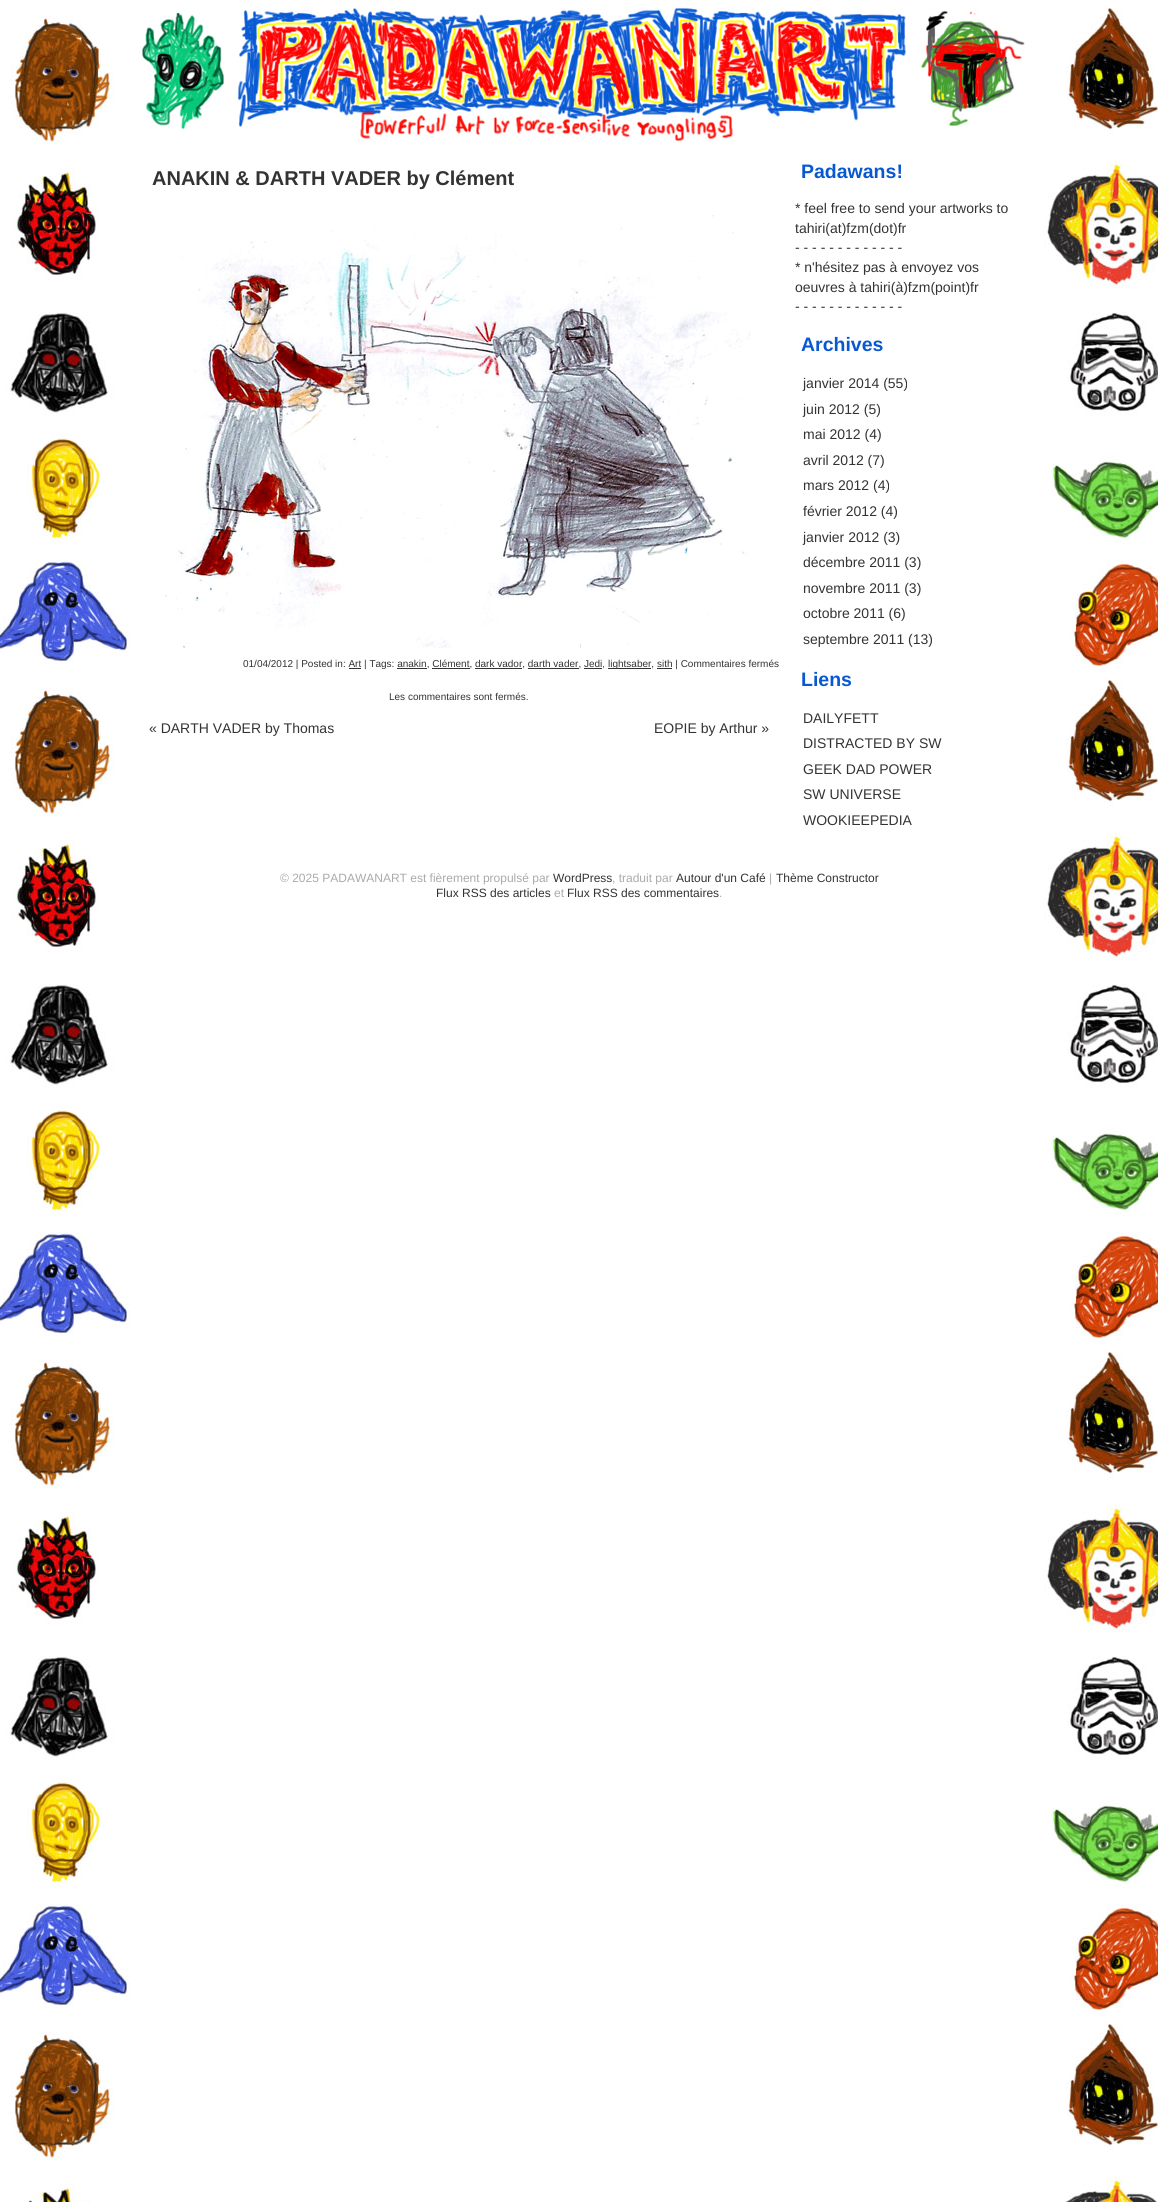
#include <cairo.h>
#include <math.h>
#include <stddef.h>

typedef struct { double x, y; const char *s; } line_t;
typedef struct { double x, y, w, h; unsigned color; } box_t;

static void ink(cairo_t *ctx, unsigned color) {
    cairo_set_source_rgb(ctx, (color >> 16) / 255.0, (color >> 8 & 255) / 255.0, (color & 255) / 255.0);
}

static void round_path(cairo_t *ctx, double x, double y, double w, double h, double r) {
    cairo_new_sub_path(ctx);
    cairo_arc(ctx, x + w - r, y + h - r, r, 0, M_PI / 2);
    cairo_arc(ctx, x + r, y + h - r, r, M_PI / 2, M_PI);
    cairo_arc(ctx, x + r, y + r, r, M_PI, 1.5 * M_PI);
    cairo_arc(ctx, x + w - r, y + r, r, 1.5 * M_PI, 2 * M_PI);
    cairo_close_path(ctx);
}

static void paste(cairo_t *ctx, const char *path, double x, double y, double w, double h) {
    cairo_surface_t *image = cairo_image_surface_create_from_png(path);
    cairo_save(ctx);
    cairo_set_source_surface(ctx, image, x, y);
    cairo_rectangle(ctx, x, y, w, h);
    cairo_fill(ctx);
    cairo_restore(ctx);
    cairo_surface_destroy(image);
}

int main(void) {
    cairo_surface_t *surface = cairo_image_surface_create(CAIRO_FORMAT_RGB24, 1158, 2202);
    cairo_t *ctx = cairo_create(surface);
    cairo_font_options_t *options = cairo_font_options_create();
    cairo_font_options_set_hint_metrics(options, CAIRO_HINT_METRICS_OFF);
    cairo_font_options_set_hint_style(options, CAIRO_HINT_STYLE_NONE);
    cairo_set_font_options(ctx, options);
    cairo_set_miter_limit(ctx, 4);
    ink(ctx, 0xFFFFFF);
    cairo_paint(ctx);
    paste(ctx, "media/1.png", 0, 8, 1158, 2194);
    paste(ctx, "media/2.png", 142, 7, 883, 135);
    round_path(ctx, 128.5, 142.5, 901, 694, 3.5);
    ink(ctx, 0xFFFFFF);
    cairo_set_line_width(ctx, 1);
    cairo_stroke(ctx);
    cairo_select_font_face(ctx, "Liberation Sans", CAIRO_FONT_SLANT_NORMAL, CAIRO_FONT_WEIGHT_BOLD);
    cairo_set_font_size(ctx, 20);
    ink(ctx, 0x333333);
    cairo_move_to(ctx, 152, 185);
    cairo_show_text(ctx, "ANAKIN & DARTH VADER by Clément");
    paste(ctx, "media/3.png", 165, 215, 586, 433);
    cairo_select_font_face(ctx, "Liberation Sans", CAIRO_FONT_SLANT_NORMAL, CAIRO_FONT_WEIGHT_NORMAL);
    cairo_set_font_size(ctx, 10);
    cairo_move_to(ctx, 243, 667);
    cairo_show_text(ctx, "01/04/2012 | Posted in: Art | Tags: anakin, Clément, dark vador, darth vader, Jedi,");
    cairo_rectangle(ctx, 608, 668, 43, 1);
    cairo_fill(ctx);
    cairo_move_to(ctx, 608, 667);
    cairo_show_text(ctx, "lightsaber, sith | Commentaires fermés");
    {
        static const box_t items[] = {
            {349, 668, 12, 1, 0x333333},
            {397, 668, 30, 1, 0x333333},
            {432, 668, 38, 1, 0x333333},
            {475, 668, 47, 1, 0x333333},
            {528, 668, 51, 1, 0x333333},
            {584, 668, 18, 1, 0x333333},
            {657, 668, 15, 1, 0x333333},
        };
        for (size_t i = 0; i < sizeof items / sizeof *items; i++) {
            ink(ctx, items[i].color);
            cairo_rectangle(ctx, items[i].x, items[i].y, items[i].w, items[i].h);
            cairo_fill(ctx);
        }
    }
    cairo_move_to(ctx, 389, 700);
    cairo_show_text(ctx, "Les commentaires sont fermés.");
    cairo_set_font_size(ctx, 14);
    cairo_move_to(ctx, 149, 733);
    cairo_show_text(ctx, "« DARTH VADER by Thomas");
    cairo_move_to(ctx, 654, 733);
    cairo_show_text(ctx, "EOPIE by Arthur »");
    cairo_select_font_face(ctx, "Liberation Sans", CAIRO_FONT_SLANT_NORMAL, CAIRO_FONT_WEIGHT_BOLD);
    cairo_set_font_size(ctx, 19.5);
    ink(ctx, 0x0859D1);
    cairo_move_to(ctx, 801, 178);
    cairo_show_text(ctx, "Padawans!");
    cairo_select_font_face(ctx, "Liberation Sans", CAIRO_FONT_SLANT_NORMAL, CAIRO_FONT_WEIGHT_NORMAL);
    cairo_set_font_size(ctx, 14);
    ink(ctx, 0x333333);
    {
        static const line_t items[] = {
            {795, 213, "* feel free to send your artworks to"},
            {795, 233, "tahiri(at)fzm(dot)fr"},
            {795, 252, "- - - - - - - - - - - - -"},
            {795, 272, "* n'hésitez pas à envoyez vos"},
            {795, 292, "oeuvres à tahiri(à)fzm(point)fr"},
            {795, 311, "- - - - - - - - - - - - -"},
        };
        for (size_t i = 0; i < sizeof items / sizeof *items; i++) {
            cairo_move_to(ctx, items[i].x, items[i].y);
            cairo_show_text(ctx, items[i].s);
        }
    }
    cairo_select_font_face(ctx, "Liberation Sans", CAIRO_FONT_SLANT_NORMAL, CAIRO_FONT_WEIGHT_BOLD);
    cairo_set_font_size(ctx, 19.5);
    ink(ctx, 0x0859D1);
    cairo_move_to(ctx, 801, 351);
    cairo_show_text(ctx, "Archives");
    cairo_select_font_face(ctx, "Liberation Sans", CAIRO_FONT_SLANT_NORMAL, CAIRO_FONT_WEIGHT_NORMAL);
    cairo_set_font_size(ctx, 14);
    ink(ctx, 0x333333);
    {
        static const line_t items[] = {
            {803, 388, "janvier 2014 (55)"},
            {803, 414, "juin 2012 (5)"},
            {803, 439, "mai 2012 (4)"},
            {803, 465, "avril 2012 (7)"},
            {803, 490, "mars 2012 (4)"},
            {803, 516, "février 2012 (4)"},
            {803, 542, "janvier 2012 (3)"},
            {803, 567, "décembre 2011 (3)"},
            {803, 593, "novembre 2011 (3)"},
            {803, 618, "octobre 2011 (6)"},
            {803, 644, "septembre 2011 (13)"},
        };
        for (size_t i = 0; i < sizeof items / sizeof *items; i++) {
            cairo_move_to(ctx, items[i].x, items[i].y);
            cairo_show_text(ctx, items[i].s);
        }
    }
    cairo_select_font_face(ctx, "Liberation Sans", CAIRO_FONT_SLANT_NORMAL, CAIRO_FONT_WEIGHT_BOLD);
    cairo_set_font_size(ctx, 19.5);
    ink(ctx, 0x0859D1);
    cairo_move_to(ctx, 801, 686);
    cairo_show_text(ctx, "Liens");
    cairo_select_font_face(ctx, "Liberation Sans", CAIRO_FONT_SLANT_NORMAL, CAIRO_FONT_WEIGHT_NORMAL);
    cairo_set_font_size(ctx, 14);
    ink(ctx, 0x333333);
    {
        static const line_t items[] = {
            {803, 723, "DAILYFETT"},
            {803, 748, "DISTRACTED BY SW"},
            {803, 774, "GEEK DAD POWER"},
            {803, 799, "SW UNIVERSE"},
            {803, 825, "WOOKIEEPEDIA"},
        };
        for (size_t i = 0; i < sizeof items / sizeof *items; i++) {
            cairo_move_to(ctx, items[i].x, items[i].y);
            cairo_show_text(ctx, items[i].s);
        }
    }
    cairo_set_font_size(ctx, 12);
    ink(ctx, 0xAAAAAA);
    cairo_move_to(ctx, 280, 882);
    cairo_show_text(ctx, "© 2025 PADAWANART est fièrement propulsé par");
    ink(ctx, 0x333333);
    cairo_move_to(ctx, 553, 882);
    cairo_show_text(ctx, "WordPress");
    ink(ctx, 0xAAAAAA);
    cairo_move_to(ctx, 612, 882);
    cairo_show_text(ctx, ", traduit par");
    ink(ctx, 0x333333);
    cairo_move_to(ctx, 676, 882);
    cairo_show_text(ctx, "Autour d'un Café");
    ink(ctx, 0xAAAAAA);
    cairo_move_to(ctx, 769, 882);
    cairo_show_text(ctx, "|");
    ink(ctx, 0x333333);
    cairo_move_to(ctx, 776, 882);
    cairo_show_text(ctx, "Thème Constructor");
    cairo_move_to(ctx, 436, 897);
    cairo_show_text(ctx, "Flux RSS des articles");
    ink(ctx, 0xAAAAAA);
    cairo_move_to(ctx, 554, 897);
    cairo_show_text(ctx, "et");
    ink(ctx, 0x333333);
    cairo_move_to(ctx, 567, 897);
    cairo_show_text(ctx, "Flux RSS des commentaires");
    ink(ctx, 0xAAAAAA);
    cairo_move_to(ctx, 719, 897);
    cairo_show_text(ctx, ".");
    cairo_surface_write_to_png(surface, "image.png");
    cairo_font_options_destroy(options);
    cairo_destroy(ctx);
    cairo_surface_destroy(surface);
    return 0;
}
